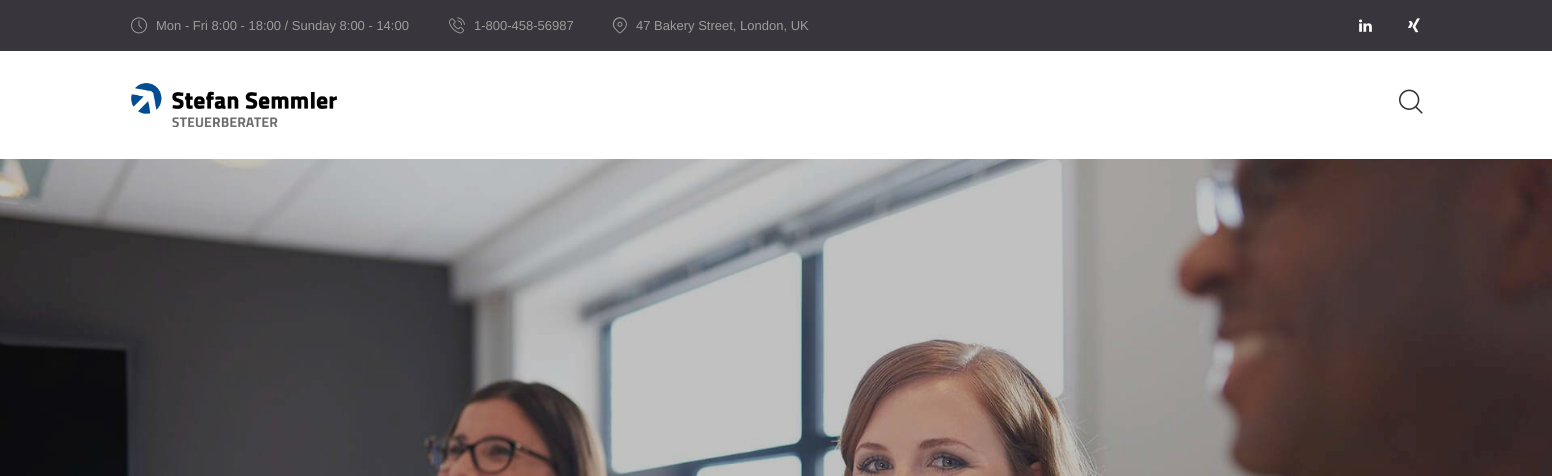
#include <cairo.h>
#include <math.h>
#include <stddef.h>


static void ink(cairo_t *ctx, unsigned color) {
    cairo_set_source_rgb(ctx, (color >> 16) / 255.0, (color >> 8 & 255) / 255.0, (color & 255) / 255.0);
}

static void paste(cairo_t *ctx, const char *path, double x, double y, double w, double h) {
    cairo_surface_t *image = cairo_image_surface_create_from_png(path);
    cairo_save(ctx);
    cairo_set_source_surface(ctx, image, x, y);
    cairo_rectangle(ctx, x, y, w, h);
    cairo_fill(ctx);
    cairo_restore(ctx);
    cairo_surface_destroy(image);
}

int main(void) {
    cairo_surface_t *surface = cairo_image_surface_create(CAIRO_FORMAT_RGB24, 1552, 476);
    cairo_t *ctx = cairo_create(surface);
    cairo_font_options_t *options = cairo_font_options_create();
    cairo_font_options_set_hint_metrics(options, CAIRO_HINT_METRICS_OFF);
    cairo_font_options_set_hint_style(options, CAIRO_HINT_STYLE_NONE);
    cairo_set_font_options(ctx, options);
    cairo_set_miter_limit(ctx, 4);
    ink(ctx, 0xFFFFFF);
    cairo_paint(ctx);
    ink(ctx, 0x38363C);
    cairo_rectangle(ctx, 0, 0, 1552, 51);
    cairo_fill(ctx);
    paste(ctx, "media/1.png", 131, 17, 16, 17);
    cairo_select_font_face(ctx, "Liberation Sans", CAIRO_FONT_SLANT_NORMAL, CAIRO_FONT_WEIGHT_NORMAL);
    cairo_set_font_size(ctx, 13);
    ink(ctx, 0x9D9C99);
    cairo_move_to(ctx, 156, 30);
    cairo_show_text(ctx, "Mon - Fri 8:00 - 18:00 / Sunday 8:00 - 14:00");
    paste(ctx, "media/2.png", 449, 17, 16, 17);
    cairo_move_to(ctx, 474, 30);
    cairo_show_text(ctx, "1-800-458-56987");
    paste(ctx, "media/3.png", 612, 17, 15, 17);
    cairo_move_to(ctx, 636, 30);
    cairo_show_text(ctx, "47 Bakery Street, London, UK");
    paste(ctx, "media/4.png", 1359, 19, 13, 13);
    paste(ctx, "media/5.png", 1408, 18, 12, 15);
    paste(ctx, "media/6.png", 131, 83, 206, 44);
    paste(ctx, "media/7.png", 1399, 89, 24, 25);
    paste(ctx, "media/8.png", 0, 159, 1552, 317);
    cairo_surface_write_to_png(surface, "image.png");
    cairo_font_options_destroy(options);
    cairo_destroy(ctx);
    cairo_surface_destroy(surface);
    return 0;
}
